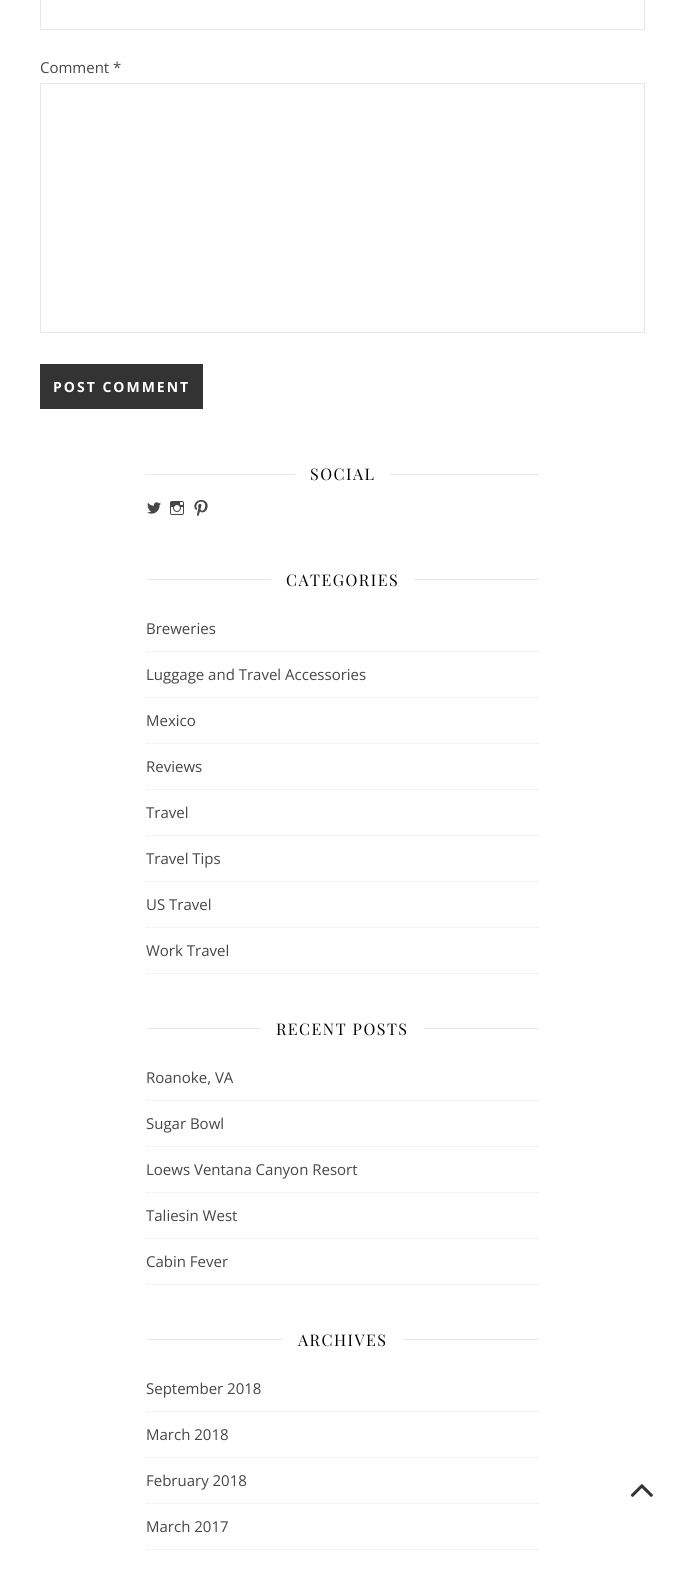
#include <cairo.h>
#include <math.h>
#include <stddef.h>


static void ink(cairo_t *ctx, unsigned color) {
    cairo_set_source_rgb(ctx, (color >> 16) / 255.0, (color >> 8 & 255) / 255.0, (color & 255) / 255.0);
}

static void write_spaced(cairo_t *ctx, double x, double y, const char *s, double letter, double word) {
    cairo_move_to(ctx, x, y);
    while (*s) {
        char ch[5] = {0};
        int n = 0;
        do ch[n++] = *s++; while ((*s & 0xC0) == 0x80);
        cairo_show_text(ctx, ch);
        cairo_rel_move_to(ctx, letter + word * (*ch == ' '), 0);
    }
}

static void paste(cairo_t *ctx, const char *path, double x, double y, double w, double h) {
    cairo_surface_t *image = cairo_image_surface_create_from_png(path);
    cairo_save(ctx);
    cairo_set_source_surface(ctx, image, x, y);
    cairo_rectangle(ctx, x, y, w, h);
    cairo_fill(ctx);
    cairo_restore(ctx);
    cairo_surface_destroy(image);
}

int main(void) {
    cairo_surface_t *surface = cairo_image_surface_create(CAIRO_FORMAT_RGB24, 685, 1569);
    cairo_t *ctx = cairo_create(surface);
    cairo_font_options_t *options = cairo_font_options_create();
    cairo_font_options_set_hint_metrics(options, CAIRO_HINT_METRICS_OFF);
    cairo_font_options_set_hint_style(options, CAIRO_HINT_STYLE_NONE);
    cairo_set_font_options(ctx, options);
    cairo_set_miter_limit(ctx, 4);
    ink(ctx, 0xFFFFFF);
    cairo_paint(ctx);
    cairo_rectangle(ctx, 40.5, -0.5, 604, 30);
    ink(ctx, 0xE8E8E8);
    cairo_set_line_width(ctx, 1);
    cairo_stroke(ctx);
    cairo_select_font_face(ctx, "Open Sans", CAIRO_FONT_SLANT_NORMAL, CAIRO_FONT_WEIGHT_NORMAL);
    cairo_set_font_size(ctx, 15);
    ink(ctx, 0x464646);
    cairo_move_to(ctx, 40, 73);
    cairo_show_text(ctx, "Comment *");
    cairo_rectangle(ctx, 40.5, 83.5, 604, 249);
    ink(ctx, 0xE8E8E8);
    cairo_stroke(ctx);
    ink(ctx, 0x333333);
    cairo_rectangle(ctx, 40, 364, 163, 45);
    cairo_fill(ctx);
    cairo_select_font_face(ctx, "Open Sans", CAIRO_FONT_SLANT_NORMAL, CAIRO_FONT_WEIGHT_BOLD);
    cairo_set_font_size(ctx, 14);
    ink(ctx, 0xFFFFFF);
    write_spaced(ctx, 53, 392, "POST COMMENT", 2, 0);
    ink(ctx, 0xE8E8E8);
    cairo_rectangle(ctx, 146, 474, 149, 1);
    cairo_fill(ctx);
    cairo_select_font_face(ctx, "Playfair Display", CAIRO_FONT_SLANT_NORMAL, CAIRO_FONT_WEIGHT_NORMAL);
    cairo_set_font_size(ctx, 16);
    ink(ctx, 0x030303);
    write_spaced(ctx, 310, 480, "SOCIAL", 1.5, 0);
    ink(ctx, 0xE8E8E8);
    cairo_rectangle(ctx, 390, 474, 149, 1);
    cairo_fill(ctx);
    paste(ctx, "media/1.png", 147, 502, 14, 12);
    paste(ctx, "media/2.png", 170, 501, 14, 14);
    paste(ctx, "media/3.png", 194, 500, 14, 16);
    cairo_rectangle(ctx, 146, 579, 125, 1);
    cairo_fill(ctx);
    ink(ctx, 0x030303);
    write_spaced(ctx, 286, 586, "CATEGORIES", 1.5, 0);
    ink(ctx, 0xE8E8E8);
    cairo_rectangle(ctx, 414, 579, 125, 1);
    cairo_fill(ctx);
    cairo_new_path(ctx);
    cairo_move_to(ctx, 146, 651.5);
    cairo_line_to(ctx, 539, 651.5);
    cairo_set_dash(ctx, (double[]){1, 1}, 2, 0);
    cairo_stroke(ctx);
    cairo_select_font_face(ctx, "Open Sans", CAIRO_FONT_SLANT_NORMAL, CAIRO_FONT_WEIGHT_NORMAL);
    cairo_set_font_size(ctx, 15);
    ink(ctx, 0x464646);
    cairo_move_to(ctx, 146, 634);
    cairo_show_text(ctx, "Breweries");
    cairo_new_path(ctx);
    cairo_move_to(ctx, 146, 697.5);
    cairo_line_to(ctx, 539, 697.5);
    ink(ctx, 0xE8E8E8);
    cairo_stroke(ctx);
    ink(ctx, 0x464646);
    cairo_move_to(ctx, 146, 680);
    cairo_show_text(ctx, "Luggage and Travel Accessories");
    cairo_new_path(ctx);
    cairo_move_to(ctx, 146, 743.5);
    cairo_line_to(ctx, 539, 743.5);
    ink(ctx, 0xE8E8E8);
    cairo_stroke(ctx);
    ink(ctx, 0x464646);
    cairo_move_to(ctx, 146, 726);
    cairo_show_text(ctx, "Mexico");
    cairo_new_path(ctx);
    cairo_move_to(ctx, 146, 789.5);
    cairo_line_to(ctx, 539, 789.5);
    ink(ctx, 0xE8E8E8);
    cairo_stroke(ctx);
    ink(ctx, 0x464646);
    cairo_move_to(ctx, 146, 772);
    cairo_show_text(ctx, "Reviews");
    cairo_new_path(ctx);
    cairo_move_to(ctx, 146, 835.5);
    cairo_line_to(ctx, 539, 835.5);
    ink(ctx, 0xE8E8E8);
    cairo_stroke(ctx);
    ink(ctx, 0x464646);
    cairo_move_to(ctx, 146, 818);
    cairo_show_text(ctx, "Travel");
    cairo_new_path(ctx);
    cairo_move_to(ctx, 146, 881.5);
    cairo_line_to(ctx, 539, 881.5);
    ink(ctx, 0xE8E8E8);
    cairo_stroke(ctx);
    ink(ctx, 0x464646);
    cairo_move_to(ctx, 146, 864);
    cairo_show_text(ctx, "Travel Tips");
    cairo_new_path(ctx);
    cairo_move_to(ctx, 146, 927.5);
    cairo_line_to(ctx, 539, 927.5);
    ink(ctx, 0xE8E8E8);
    cairo_stroke(ctx);
    ink(ctx, 0x464646);
    cairo_move_to(ctx, 146, 910);
    cairo_show_text(ctx, "US Travel");
    cairo_new_path(ctx);
    cairo_move_to(ctx, 146, 973.5);
    cairo_line_to(ctx, 539, 973.5);
    ink(ctx, 0xE8E8E8);
    cairo_stroke(ctx);
    ink(ctx, 0x464646);
    cairo_move_to(ctx, 146, 956);
    cairo_show_text(ctx, "Work Travel");
    ink(ctx, 0xE8E8E8);
    cairo_rectangle(ctx, 146, 1028, 115, 1);
    cairo_fill(ctx);
    cairo_select_font_face(ctx, "Playfair Display", CAIRO_FONT_SLANT_NORMAL, CAIRO_FONT_WEIGHT_NORMAL);
    cairo_set_font_size(ctx, 16);
    ink(ctx, 0x030303);
    write_spaced(ctx, 276, 1035, "RECENT POSTS", 1.5, 0);
    ink(ctx, 0xE8E8E8);
    cairo_rectangle(ctx, 424, 1028, 115, 1);
    cairo_fill(ctx);
    cairo_new_path(ctx);
    cairo_move_to(ctx, 146, 1100.5);
    cairo_line_to(ctx, 539, 1100.5);
    cairo_stroke(ctx);
    cairo_select_font_face(ctx, "Open Sans", CAIRO_FONT_SLANT_NORMAL, CAIRO_FONT_WEIGHT_NORMAL);
    cairo_set_font_size(ctx, 15);
    ink(ctx, 0x464646);
    cairo_move_to(ctx, 146, 1083);
    cairo_show_text(ctx, "Roanoke, VA");
    cairo_new_path(ctx);
    cairo_move_to(ctx, 146, 1146.5);
    cairo_line_to(ctx, 539, 1146.5);
    ink(ctx, 0xE8E8E8);
    cairo_stroke(ctx);
    ink(ctx, 0x464646);
    cairo_move_to(ctx, 146, 1129);
    cairo_show_text(ctx, "Sugar Bowl");
    cairo_new_path(ctx);
    cairo_move_to(ctx, 146, 1192.5);
    cairo_line_to(ctx, 539, 1192.5);
    ink(ctx, 0xE8E8E8);
    cairo_stroke(ctx);
    ink(ctx, 0x464646);
    cairo_move_to(ctx, 146, 1175);
    cairo_show_text(ctx, "Loews Ventana Canyon Resort");
    cairo_new_path(ctx);
    cairo_move_to(ctx, 146, 1238.5);
    cairo_line_to(ctx, 539, 1238.5);
    ink(ctx, 0xE8E8E8);
    cairo_stroke(ctx);
    ink(ctx, 0x464646);
    cairo_move_to(ctx, 146, 1221);
    cairo_show_text(ctx, "Taliesin West");
    cairo_new_path(ctx);
    cairo_move_to(ctx, 146, 1284.5);
    cairo_line_to(ctx, 539, 1284.5);
    ink(ctx, 0xE8E8E8);
    cairo_stroke(ctx);
    ink(ctx, 0x464646);
    cairo_move_to(ctx, 146, 1267);
    cairo_show_text(ctx, "Cabin Fever");
    ink(ctx, 0xE8E8E8);
    cairo_rectangle(ctx, 146, 1339, 137, 1);
    cairo_fill(ctx);
    cairo_select_font_face(ctx, "Playfair Display", CAIRO_FONT_SLANT_NORMAL, CAIRO_FONT_WEIGHT_NORMAL);
    cairo_set_font_size(ctx, 16);
    ink(ctx, 0x030303);
    write_spaced(ctx, 298, 1346, "ARCHIVES", 1.5, 0);
    ink(ctx, 0xE8E8E8);
    cairo_rectangle(ctx, 402, 1339, 137, 1);
    cairo_fill(ctx);
    cairo_new_path(ctx);
    cairo_move_to(ctx, 146, 1411.5);
    cairo_line_to(ctx, 539, 1411.5);
    cairo_stroke(ctx);
    cairo_select_font_face(ctx, "Open Sans", CAIRO_FONT_SLANT_NORMAL, CAIRO_FONT_WEIGHT_NORMAL);
    cairo_set_font_size(ctx, 15);
    ink(ctx, 0x464646);
    cairo_move_to(ctx, 146, 1394);
    cairo_show_text(ctx, "September 2018");
    cairo_new_path(ctx);
    cairo_move_to(ctx, 146, 1457.5);
    cairo_line_to(ctx, 539, 1457.5);
    ink(ctx, 0xE8E8E8);
    cairo_stroke(ctx);
    ink(ctx, 0x464646);
    cairo_move_to(ctx, 146, 1440);
    cairo_show_text(ctx, "March 2018");
    cairo_new_path(ctx);
    cairo_move_to(ctx, 146, 1503.5);
    cairo_line_to(ctx, 539, 1503.5);
    ink(ctx, 0xE8E8E8);
    cairo_stroke(ctx);
    ink(ctx, 0x464646);
    cairo_move_to(ctx, 146, 1486);
    cairo_show_text(ctx, "February 2018");
    cairo_new_path(ctx);
    cairo_move_to(ctx, 146, 1549.5);
    cairo_line_to(ctx, 539, 1549.5);
    ink(ctx, 0xE8E8E8);
    cairo_stroke(ctx);
    ink(ctx, 0x464646);
    cairo_move_to(ctx, 146, 1532);
    cairo_show_text(ctx, "March 2017");
    paste(ctx, "media/4.png", 630, 1484, 23, 13);
    cairo_surface_write_to_png(surface, "image.png");
    cairo_font_options_destroy(options);
    cairo_destroy(ctx);
    cairo_surface_destroy(surface);
    return 0;
}
